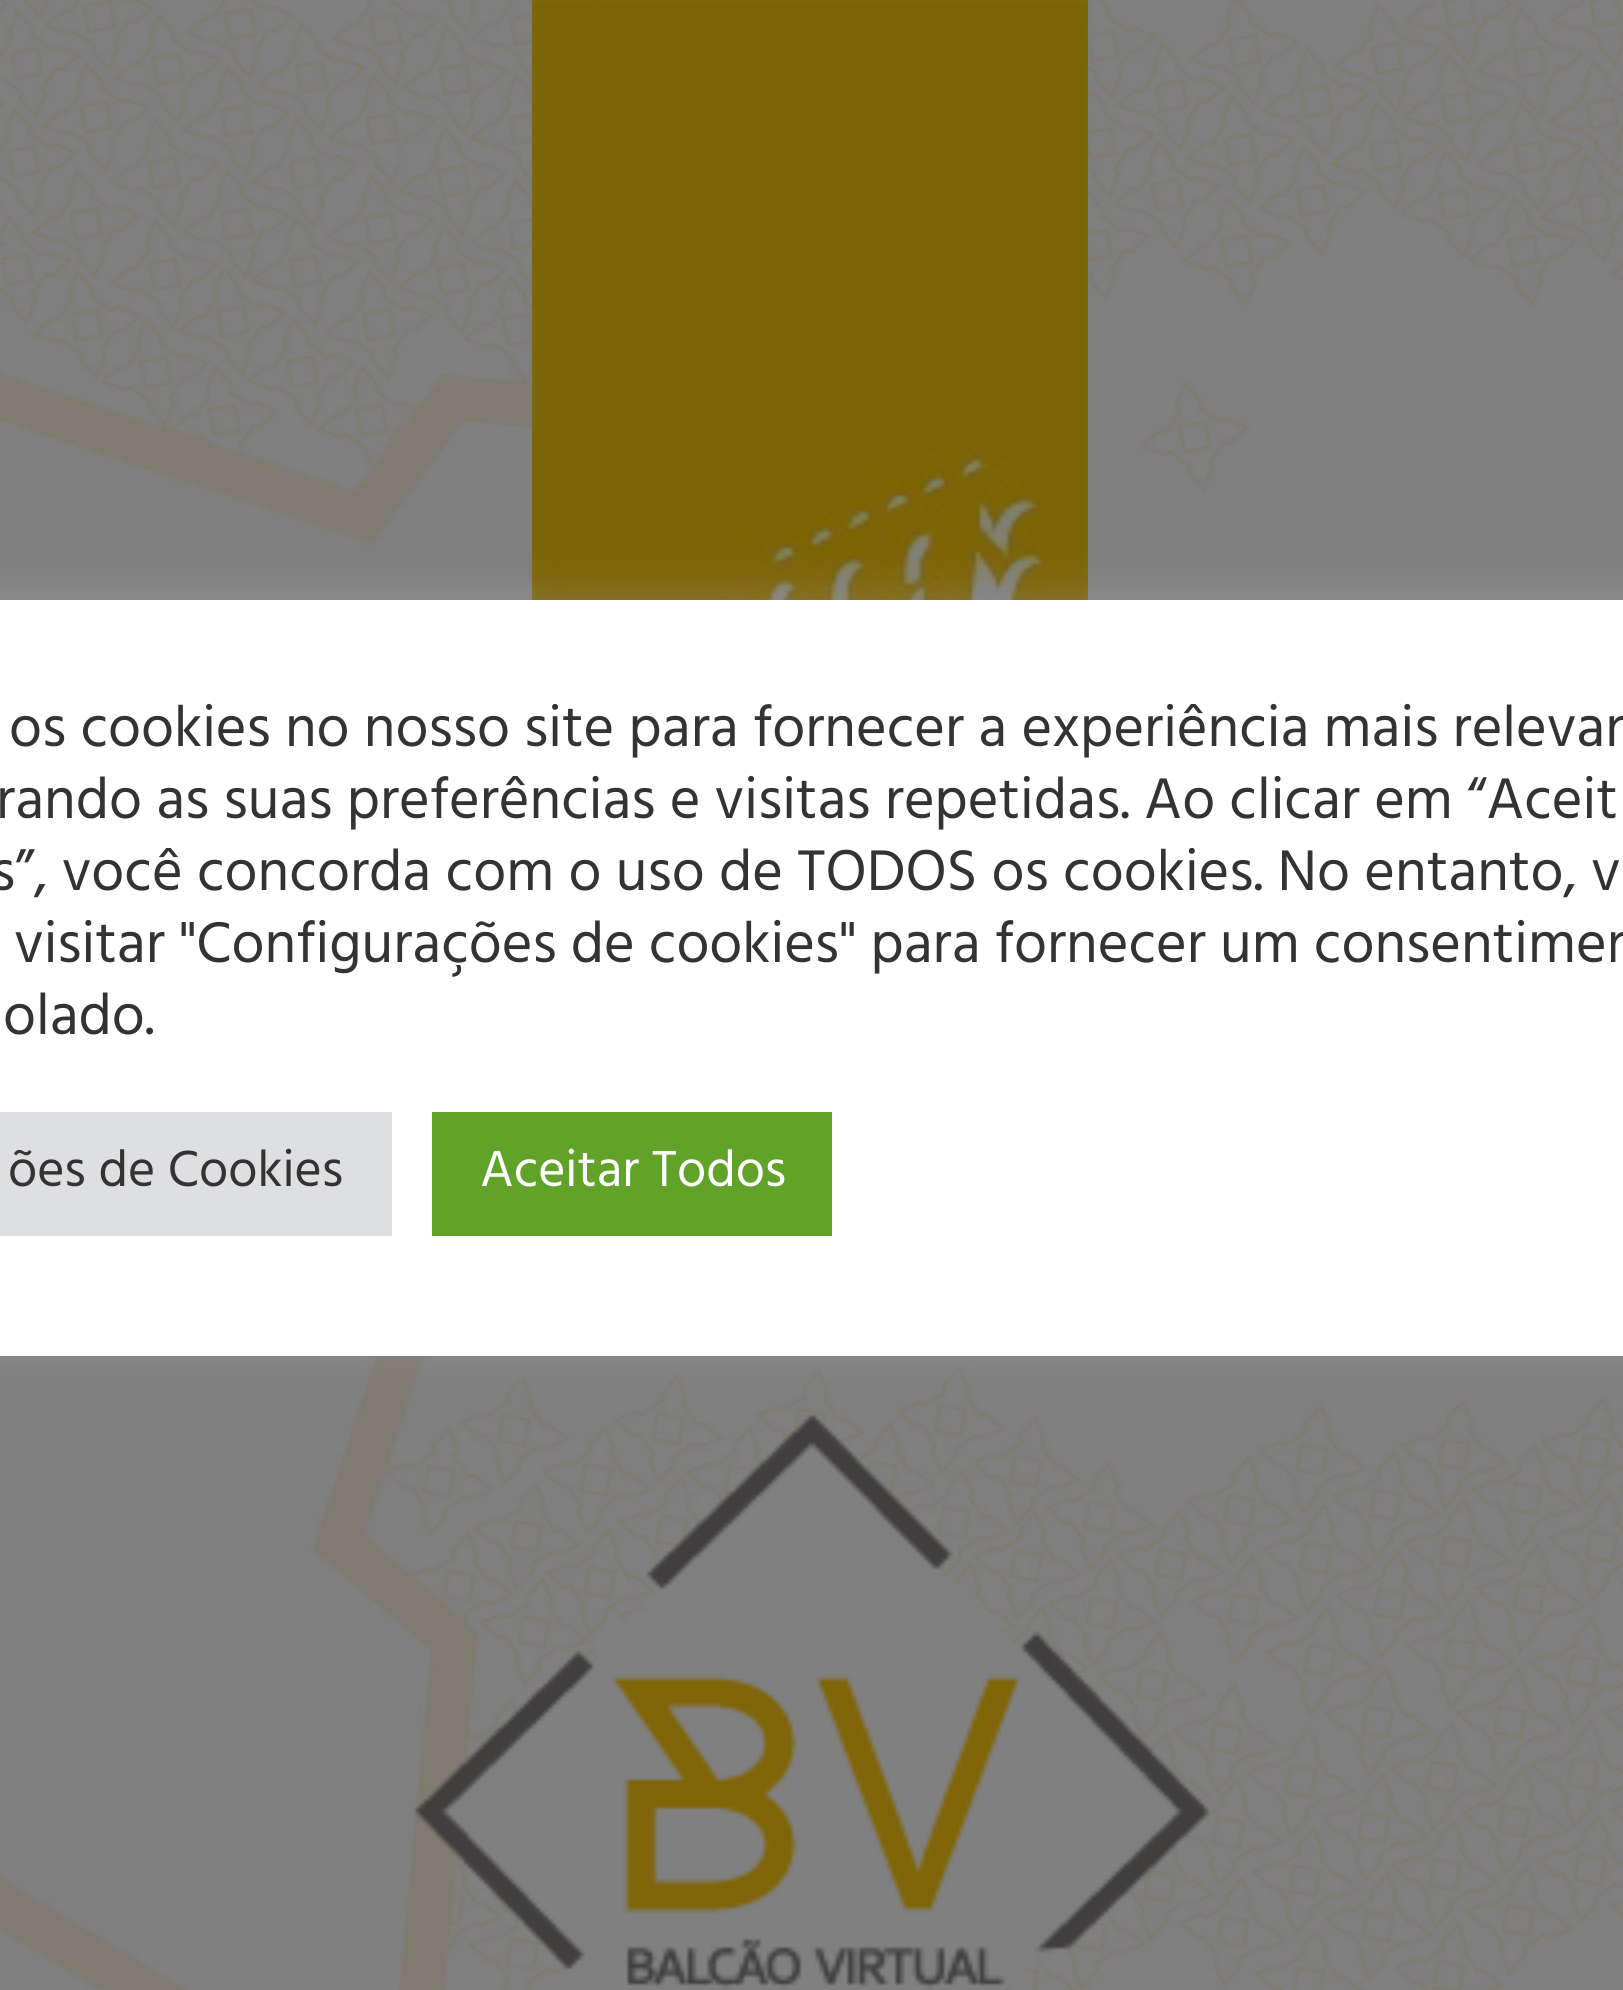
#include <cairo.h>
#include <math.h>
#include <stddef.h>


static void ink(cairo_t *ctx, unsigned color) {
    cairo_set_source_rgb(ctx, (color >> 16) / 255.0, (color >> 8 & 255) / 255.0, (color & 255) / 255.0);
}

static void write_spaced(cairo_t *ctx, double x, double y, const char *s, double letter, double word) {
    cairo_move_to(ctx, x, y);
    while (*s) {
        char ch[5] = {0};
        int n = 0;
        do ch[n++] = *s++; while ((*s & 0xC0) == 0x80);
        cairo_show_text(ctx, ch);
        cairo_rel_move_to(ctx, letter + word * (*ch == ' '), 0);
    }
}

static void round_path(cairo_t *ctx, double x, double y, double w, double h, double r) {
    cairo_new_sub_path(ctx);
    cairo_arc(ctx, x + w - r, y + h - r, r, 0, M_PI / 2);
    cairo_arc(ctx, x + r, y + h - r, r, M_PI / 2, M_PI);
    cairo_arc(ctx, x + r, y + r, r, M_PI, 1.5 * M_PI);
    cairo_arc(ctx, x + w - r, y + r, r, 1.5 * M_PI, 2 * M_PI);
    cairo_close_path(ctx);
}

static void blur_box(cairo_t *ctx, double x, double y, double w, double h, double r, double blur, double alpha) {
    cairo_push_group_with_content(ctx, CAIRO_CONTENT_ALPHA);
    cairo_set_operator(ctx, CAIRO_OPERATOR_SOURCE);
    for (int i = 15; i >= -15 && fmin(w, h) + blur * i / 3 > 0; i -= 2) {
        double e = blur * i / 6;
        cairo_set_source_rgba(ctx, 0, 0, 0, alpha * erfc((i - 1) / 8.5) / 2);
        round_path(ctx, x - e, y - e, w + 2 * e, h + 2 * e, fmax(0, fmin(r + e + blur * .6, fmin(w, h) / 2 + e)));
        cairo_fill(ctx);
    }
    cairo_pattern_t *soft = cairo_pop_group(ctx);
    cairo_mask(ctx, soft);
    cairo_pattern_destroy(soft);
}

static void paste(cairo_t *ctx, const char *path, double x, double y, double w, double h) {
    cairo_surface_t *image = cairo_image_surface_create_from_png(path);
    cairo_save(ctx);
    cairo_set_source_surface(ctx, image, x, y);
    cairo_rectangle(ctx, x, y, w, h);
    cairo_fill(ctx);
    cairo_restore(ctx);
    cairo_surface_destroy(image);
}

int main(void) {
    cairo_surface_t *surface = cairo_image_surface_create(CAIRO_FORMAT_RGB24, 1623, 1990);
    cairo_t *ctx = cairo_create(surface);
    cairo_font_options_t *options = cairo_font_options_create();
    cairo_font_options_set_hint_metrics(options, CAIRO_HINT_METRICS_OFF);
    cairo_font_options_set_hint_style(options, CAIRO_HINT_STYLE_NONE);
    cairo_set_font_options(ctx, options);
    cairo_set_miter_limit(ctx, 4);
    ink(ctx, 0xFFFFFF);
    cairo_paint(ctx);
    paste(ctx, "media/1.png", 0, 0, 1623, 1990);
    paste(ctx, "media/2.png", 532, 0, 556, 600);
    paste(ctx, "media/3.png", 414, 1414, 796, 576);
    ink(ctx, 0xACABAB);
    blur_box(ctx, -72, 596, 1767, 756, 12, 20, 0.3);
    ink(ctx, 0xFFFFFF);
    cairo_rectangle(ctx, 0, 600, 1623, 756);
    cairo_fill(ctx);
    cairo_select_font_face(ctx, "Hind", CAIRO_FONT_SLANT_NORMAL, CAIRO_FONT_WEIGHT_NORMAL);
    cairo_set_font_size(ctx, 58.7);
    ink(ctx, 0x333333);
    write_spaced(ctx, 9, 746, "os cookies no nosso site para fornecer a experiência mais relevan", 0, -0.1);
    write_spaced(ctx, -4, 818, "rando as suas preferências e visitas repetidas. Ao clicar em “Aceit", 0, -0.1);
    cairo_move_to(ctx, -9, 890);
    cairo_show_text(ctx, "s”, você concorda com o uso de TODOS os cookies. No entanto, v");
    write_spaced(ctx, 14, 962, "visitar \"Configurações de cookies\" para fornecer um consentimen", 0, -0.25);
    cairo_move_to(ctx, 3, 1034);
    cairo_show_text(ctx, "olado.");
    ink(ctx, 0xDEDFE0);
    cairo_rectangle(ctx, 0, 1112, 392, 124);
    cairo_fill(ctx);
    cairo_set_font_size(ctx, 52);
    ink(ctx, 0x333333);
    cairo_move_to(ctx, 8, 1186);
    cairo_show_text(ctx, "ões de Cookies");
    ink(ctx, 0x61A229);
    cairo_rectangle(ctx, 432, 1112, 400, 124);
    cairo_fill(ctx);
    ink(ctx, 0xFFFFFF);
    cairo_move_to(ctx, 480, 1186);
    cairo_show_text(ctx, "Aceitar Todos");
    cairo_surface_write_to_png(surface, "image.png");
    cairo_font_options_destroy(options);
    cairo_destroy(ctx);
    cairo_surface_destroy(surface);
    return 0;
}
